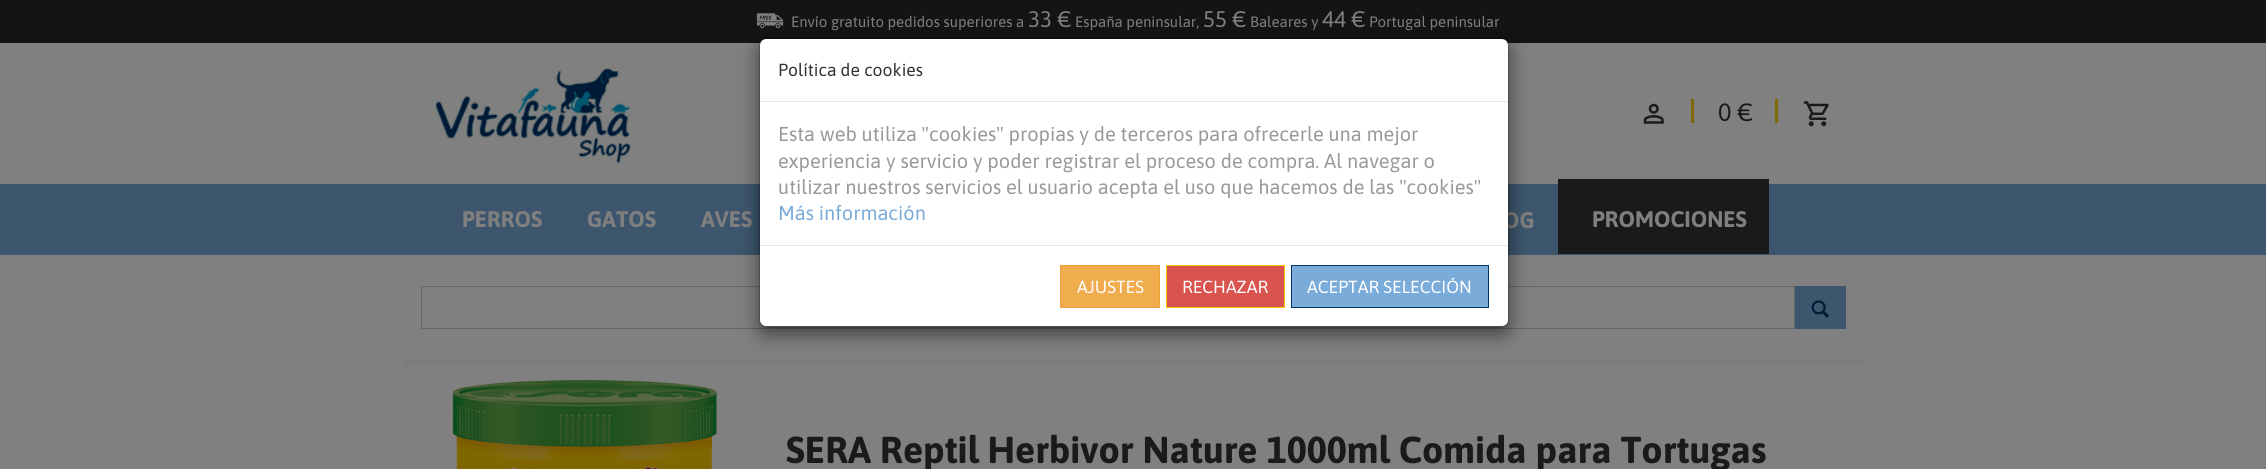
#include <cairo.h>
#include <math.h>
#include <stddef.h>

typedef struct { double x, y; const char *s; } line_t;

static void ink(cairo_t *ctx, unsigned color) {
    cairo_set_source_rgb(ctx, (color >> 16) / 255.0, (color >> 8 & 255) / 255.0, (color & 255) / 255.0);
}

static void round_path(cairo_t *ctx, double x, double y, double w, double h, double r) {
    cairo_new_sub_path(ctx);
    cairo_arc(ctx, x + w - r, y + h - r, r, 0, M_PI / 2);
    cairo_arc(ctx, x + r, y + h - r, r, M_PI / 2, M_PI);
    cairo_arc(ctx, x + r, y + r, r, M_PI, 1.5 * M_PI);
    cairo_arc(ctx, x + w - r, y + r, r, 1.5 * M_PI, 2 * M_PI);
    cairo_close_path(ctx);
}

static void blur_box(cairo_t *ctx, double x, double y, double w, double h, double r, double blur, double alpha) {
    cairo_push_group_with_content(ctx, CAIRO_CONTENT_ALPHA);
    cairo_set_operator(ctx, CAIRO_OPERATOR_SOURCE);
    for (int i = 15; i >= -15 && fmin(w, h) + blur * i / 3 > 0; i -= 2) {
        double e = blur * i / 6;
        cairo_set_source_rgba(ctx, 0, 0, 0, alpha * erfc((i - 1) / 8.5) / 2);
        round_path(ctx, x - e, y - e, w + 2 * e, h + 2 * e, fmax(0, fmin(r + e + blur * .6, fmin(w, h) / 2 + e)));
        cairo_fill(ctx);
    }
    cairo_pattern_t *soft = cairo_pop_group(ctx);
    cairo_mask(ctx, soft);
    cairo_pattern_destroy(soft);
}

static void paste(cairo_t *ctx, const char *path, double x, double y, double w, double h) {
    cairo_surface_t *image = cairo_image_surface_create_from_png(path);
    cairo_save(ctx);
    cairo_set_source_surface(ctx, image, x, y);
    cairo_rectangle(ctx, x, y, w, h);
    cairo_fill(ctx);
    cairo_restore(ctx);
    cairo_surface_destroy(image);
}

int main(void) {
    cairo_surface_t *surface = cairo_image_surface_create(CAIRO_FORMAT_RGB24, 2266, 469);
    cairo_t *ctx = cairo_create(surface);
    cairo_font_options_t *options = cairo_font_options_create();
    cairo_font_options_set_hint_metrics(options, CAIRO_HINT_METRICS_OFF);
    cairo_font_options_set_hint_style(options, CAIRO_HINT_STYLE_NONE);
    cairo_set_font_options(ctx, options);
    cairo_set_miter_limit(ctx, 4);
    ink(ctx, 0x808080);
    cairo_paint(ctx);
    ink(ctx, 0x141414);
    cairo_rectangle(ctx, 0, 0, 2266, 43);
    cairo_fill(ctx);
    paste(ctx, "media/1.png", 756, 13, 28, 16);
    cairo_select_font_face(ctx, "Asap", CAIRO_FONT_SLANT_NORMAL, CAIRO_FONT_WEIGHT_NORMAL);
    cairo_set_font_size(ctx, 15);
    ink(ctx, 0x7F7F7F);
    cairo_move_to(ctx, 791, 27);
    cairo_show_text(ctx, "Envío gratuito pedidos superiores a");
    cairo_set_font_size(ctx, 22.5);
    cairo_move_to(ctx, 1028, 27);
    cairo_show_text(ctx, "33 €");
    cairo_set_font_size(ctx, 15);
    cairo_move_to(ctx, 1075, 27);
    cairo_show_text(ctx, "España peninsular,");
    cairo_set_font_size(ctx, 22.5);
    cairo_move_to(ctx, 1203, 27);
    cairo_show_text(ctx, "55 €");
    cairo_set_font_size(ctx, 15);
    cairo_move_to(ctx, 1250, 27);
    cairo_show_text(ctx, "Baleares y");
    cairo_set_font_size(ctx, 22.5);
    cairo_move_to(ctx, 1322, 27);
    cairo_show_text(ctx, "44 €");
    cairo_set_font_size(ctx, 15);
    cairo_move_to(ctx, 1369, 27);
    cairo_show_text(ctx, "Portugal peninsular");
    paste(ctx, "media/2.png", 435, 68, 196, 96);
    paste(ctx, "media/3.png", 1643, 103, 21, 21);
    ink(ctx, 0x806900);
    cairo_rectangle(ctx, 1691, 99, 3, 24);
    cairo_fill(ctx);
    cairo_set_font_size(ctx, 25);
    ink(ctx, 0x1A1A1A);
    cairo_move_to(ctx, 1718, 121);
    cairo_show_text(ctx, "0 €");
    ink(ctx, 0x806900);
    cairo_rectangle(ctx, 1775, 99, 3, 24);
    cairo_fill(ctx);
    paste(ctx, "media/4.png", 1803, 101, 26, 26);
    ink(ctx, 0x3D566D);
    cairo_rectangle(ctx, 0, 184, 2266, 71);
    cairo_fill(ctx);
    cairo_select_font_face(ctx, "Asap", CAIRO_FONT_SLANT_NORMAL, CAIRO_FONT_WEIGHT_BOLD);
    cairo_set_font_size(ctx, 22.5);
    ink(ctx, 0x7F7F7F);
    {
        static const line_t items[] = {
            {462, 227, "PERROS"},
            {587, 227, "GATOS"},
            {701, 227, "AVES"},
            {1503, 228, "OG"},
        };
        for (size_t i = 0; i < sizeof items / sizeof *items; i++) {
            cairo_move_to(ctx, items[i].x, items[i].y);
            cairo_show_text(ctx, items[i].s);
        }
    }
    ink(ctx, 0x1A1A1A);
    cairo_rectangle(ctx, 1558, 179, 211, 75);
    cairo_fill(ctx);
    ink(ctx, 0x7F7F7F);
    cairo_move_to(ctx, 1592, 227);
    cairo_show_text(ctx, "PROMOCIONES");
    ink(ctx, 0x7D7D7D);
    cairo_rectangle(ctx, 403, 360, 1462, 6);
    cairo_fill(ctx);
    cairo_rectangle(ctx, 421.5, 286.5, 1373, 42);
    ink(ctx, 0x666666);
    cairo_set_line_width(ctx, 1);
    cairo_stroke(ctx);
    ink(ctx, 0x3D566D);
    cairo_rectangle(ctx, 1795, 286, 51, 43);
    cairo_fill(ctx);
    paste(ctx, "media/5.png", 1811, 300, 18, 18);
    paste(ctx, "media/6.png", 452, 379, 265, 90);
    cairo_set_font_size(ctx, 37.5);
    ink(ctx, 0x1A1A1A);
    cairo_move_to(ctx, 786, 463);
    cairo_show_text(ctx, "SERA Reptil Herbivor Nature 1000ml Comida para Tortugas");
    ink(ctx, 0x000000);
    blur_box(ctx, 759, 44, 750, 290, 8, 9.5, 0.5);
    ink(ctx, 0xFFFFFF);
    round_path(ctx, 760, 39, 748, 287, 6);
    cairo_fill(ctx);
    round_path(ctx, 759.5, 38.5, 749, 289, 7.5);
    cairo_set_source_rgba(ctx, 0, 0, 0, 0.2);
    cairo_stroke(ctx);
    ink(ctx, 0xE5E5E5);
    cairo_rectangle(ctx, 760, 101, 748, 1);
    cairo_fill(ctx);
    cairo_select_font_face(ctx, "Asap", CAIRO_FONT_SLANT_NORMAL, CAIRO_FONT_WEIGHT_NORMAL);
    cairo_set_font_size(ctx, 17.5);
    ink(ctx, 0x333333);
    cairo_move_to(ctx, 778, 76);
    cairo_show_text(ctx, "Política de cookies");
    cairo_set_font_size(ctx, 20);
    ink(ctx, 0x999999);
    {
        static const line_t items[] = {
            {778, 141, "Esta web utiliza \"cookies\" propias y de terceros para ofrecerle una mejor"},
            {778, 168, "experiencia y servicio y poder registrar el proceso de compra. Al navegar o"},
            {778, 194, "utilizar nuestros servicios el usuario acepta el uso que hacemos de las \"cookies\""},
        };
        for (size_t i = 0; i < sizeof items / sizeof *items; i++) {
            cairo_move_to(ctx, items[i].x, items[i].y);
            cairo_show_text(ctx, items[i].s);
        }
    }
    ink(ctx, 0x7AABD9);
    cairo_move_to(ctx, 778, 220);
    cairo_show_text(ctx, "Más información");
    ink(ctx, 0xE5E5E5);
    cairo_rectangle(ctx, 760, 245, 748, 1);
    cairo_fill(ctx);
    ink(ctx, 0xF0AD4E);
    cairo_rectangle(ctx, 1060.5, 265.5, 99, 42);
    cairo_fill_preserve(ctx);
    ink(ctx, 0xEEA236);
    cairo_stroke(ctx);
    cairo_set_font_size(ctx, 17.5);
    ink(ctx, 0xFFFFFF);
    cairo_move_to(ctx, 1077, 293);
    cairo_show_text(ctx, "AJUSTES");
    ink(ctx, 0xD9534F);
    cairo_rectangle(ctx, 1166.5, 265.5, 118, 42);
    cairo_fill_preserve(ctx);
    ink(ctx, 0xF5CA00);
    cairo_stroke(ctx);
    ink(ctx, 0xFFFFFF);
    cairo_move_to(ctx, 1182, 293);
    cairo_show_text(ctx, "RECHAZAR");
    ink(ctx, 0x7AABD9);
    cairo_rectangle(ctx, 1291.5, 265.5, 197, 42);
    cairo_fill_preserve(ctx);
    ink(ctx, 0x003768);
    cairo_stroke(ctx);
    ink(ctx, 0xFFFFFF);
    cairo_move_to(ctx, 1307, 293);
    cairo_show_text(ctx, "ACEPTAR SELECCIÓN");
    cairo_surface_write_to_png(surface, "image.png");
    cairo_font_options_destroy(options);
    cairo_destroy(ctx);
    cairo_surface_destroy(surface);
    return 0;
}
